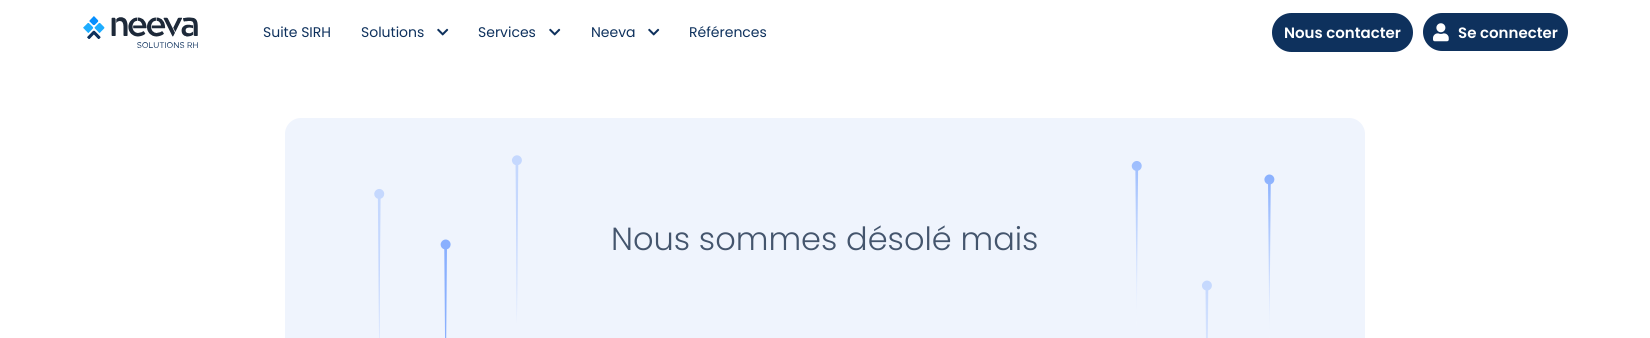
#include <cairo.h>
#include <math.h>
#include <stddef.h>


static void ink(cairo_t *ctx, unsigned color) {
    cairo_set_source_rgb(ctx, (color >> 16) / 255.0, (color >> 8 & 255) / 255.0, (color & 255) / 255.0);
}

static void round_path(cairo_t *ctx, double x, double y, double w, double h, double r) {
    cairo_new_sub_path(ctx);
    cairo_arc(ctx, x + w - r, y + h - r, r, 0, M_PI / 2);
    cairo_arc(ctx, x + r, y + h - r, r, M_PI / 2, M_PI);
    cairo_arc(ctx, x + r, y + r, r, M_PI, 1.5 * M_PI);
    cairo_arc(ctx, x + w - r, y + r, r, 1.5 * M_PI, 2 * M_PI);
    cairo_close_path(ctx);
}

static void paste(cairo_t *ctx, const char *path, double x, double y, double w, double h) {
    cairo_surface_t *image = cairo_image_surface_create_from_png(path);
    cairo_save(ctx);
    cairo_set_source_surface(ctx, image, x, y);
    cairo_rectangle(ctx, x, y, w, h);
    cairo_fill(ctx);
    cairo_restore(ctx);
    cairo_surface_destroy(image);
}

int main(void) {
    cairo_surface_t *surface = cairo_image_surface_create(CAIRO_FORMAT_RGB24, 1650, 338);
    cairo_t *ctx = cairo_create(surface);
    cairo_font_options_t *options = cairo_font_options_create();
    cairo_font_options_set_hint_metrics(options, CAIRO_HINT_METRICS_OFF);
    cairo_font_options_set_hint_style(options, CAIRO_HINT_STYLE_NONE);
    cairo_set_font_options(ctx, options);
    cairo_set_miter_limit(ctx, 4);
    ink(ctx, 0xFFFFFF);
    cairo_paint(ctx);
    paste(ctx, "media/1.png", 83, 16, 115, 32);
    cairo_select_font_face(ctx, "Poppins", CAIRO_FONT_SLANT_NORMAL, CAIRO_FONT_WEIGHT_NORMAL);
    cairo_set_font_size(ctx, 14);
    ink(ctx, 0x0E315D);
    cairo_move_to(ctx, 263, 37);
    cairo_show_text(ctx, "Suite SIRH");
    cairo_move_to(ctx, 361, 37);
    cairo_show_text(ctx, "Solutions");
    paste(ctx, "media/2.png", 437, 28, 12, 8);
    cairo_move_to(ctx, 478, 37);
    cairo_show_text(ctx, "Services");
    paste(ctx, "media/2.png", 549, 28, 12, 8);
    cairo_move_to(ctx, 591, 37);
    cairo_show_text(ctx, "Neeva");
    paste(ctx, "media/2.png", 648, 28, 12, 8);
    cairo_move_to(ctx, 689, 37);
    cairo_show_text(ctx, "Références");
    round_path(ctx, 1272, 13, 141, 39, 19.5);
    cairo_fill(ctx);
    cairo_select_font_face(ctx, "Poppins SemiBold", CAIRO_FONT_SLANT_NORMAL, CAIRO_FONT_WEIGHT_NORMAL);
    cairo_set_font_size(ctx, 15);
    ink(ctx, 0xFFFFFF);
    cairo_move_to(ctx, 1284, 38);
    cairo_show_text(ctx, "Nous contacter");
    ink(ctx, 0x0E315D);
    round_path(ctx, 1423, 13, 145, 38, 19);
    cairo_fill(ctx);
    paste(ctx, "media/3.png", 1433, 23, 16, 19);
    ink(ctx, 0xFFFFFF);
    cairo_move_to(ctx, 1458, 38);
    cairo_show_text(ctx, "Se connecter");
    ink(ctx, 0xEFF4FD);
    round_path(ctx, 285, 118, 1080, 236, 16);
    cairo_fill(ctx);
    paste(ctx, "media/4.png", 374, 155, 901, 183);
    cairo_select_font_face(ctx, "Poppins Light", CAIRO_FONT_SLANT_NORMAL, CAIRO_FONT_WEIGHT_NORMAL);
    cairo_set_font_size(ctx, 32);
    ink(ctx, 0x44556D);
    cairo_move_to(ctx, 611, 250);
    cairo_show_text(ctx, "Nous sommes désolé mais");
    cairo_surface_write_to_png(surface, "image.png");
    cairo_font_options_destroy(options);
    cairo_destroy(ctx);
    cairo_surface_destroy(surface);
    return 0;
}
